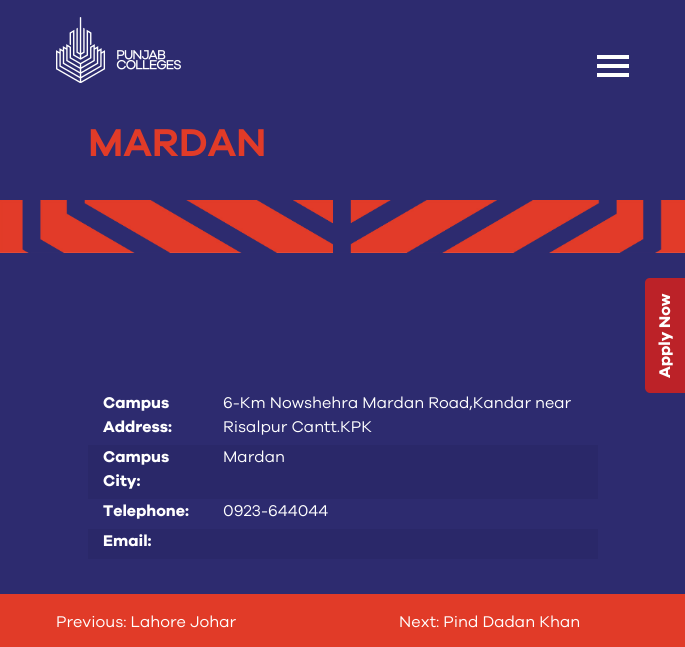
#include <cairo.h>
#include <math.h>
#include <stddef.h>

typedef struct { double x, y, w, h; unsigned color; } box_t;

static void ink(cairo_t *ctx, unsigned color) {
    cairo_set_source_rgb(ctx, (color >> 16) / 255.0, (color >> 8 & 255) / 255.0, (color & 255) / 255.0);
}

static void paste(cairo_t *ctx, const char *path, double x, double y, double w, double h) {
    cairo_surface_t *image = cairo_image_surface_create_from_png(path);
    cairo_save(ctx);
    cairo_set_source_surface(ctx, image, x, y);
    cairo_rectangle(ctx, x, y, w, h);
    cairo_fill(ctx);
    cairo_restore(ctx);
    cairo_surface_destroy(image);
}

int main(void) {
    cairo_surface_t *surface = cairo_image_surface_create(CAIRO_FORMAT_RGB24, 685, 647);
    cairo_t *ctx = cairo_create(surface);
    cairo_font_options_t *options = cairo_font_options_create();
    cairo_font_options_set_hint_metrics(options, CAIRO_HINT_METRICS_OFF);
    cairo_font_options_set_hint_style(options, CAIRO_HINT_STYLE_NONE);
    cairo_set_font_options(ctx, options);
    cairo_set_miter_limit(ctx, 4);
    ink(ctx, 0x2D2B6F);
    cairo_paint(ctx);
    paste(ctx, "media/1.png", 56, 17, 125, 66);
    {
        static const box_t items[] = {
            {597, 55, 32, 4, 0xFFFFFF},
            {597, 64, 32, 4, 0xFFFFFF},
            {597, 73, 32, 4, 0xFFFFFF},
        };
        for (size_t i = 0; i < sizeof items / sizeof *items; i++) {
            ink(ctx, items[i].color);
            cairo_rectangle(ctx, items[i].x, items[i].y, items[i].w, items[i].h);
            cairo_fill(ctx);
        }
    }
    paste(ctx, "media/2.png", 0, 200, 685, 53);
    cairo_select_font_face(ctx, "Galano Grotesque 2", CAIRO_FONT_SLANT_NORMAL, CAIRO_FONT_WEIGHT_NORMAL);
    cairo_set_font_size(ctx, 40);
    ink(ctx, 0xE13B28);
    cairo_move_to(ctx, 88, 156);
    cairo_show_text(ctx, "MARDAN");
    cairo_select_font_face(ctx, "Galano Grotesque", CAIRO_FONT_SLANT_NORMAL, CAIRO_FONT_WEIGHT_BOLD);
    cairo_set_font_size(ctx, 16);
    ink(ctx, 0xFFFFFF);
    cairo_move_to(ctx, 103, 408);
    cairo_show_text(ctx, "Campus");
    cairo_move_to(ctx, 103, 432);
    cairo_show_text(ctx, "Address:");
    cairo_select_font_face(ctx, "Galano Grotesque", CAIRO_FONT_SLANT_NORMAL, CAIRO_FONT_WEIGHT_NORMAL);
    cairo_move_to(ctx, 223, 408);
    cairo_show_text(ctx, "6-Km Nowshehra Mardan Road,Kandar near");
    cairo_move_to(ctx, 223, 432);
    cairo_show_text(ctx, "Risalpur Cantt.KPK");
    ink(ctx, 0x2A2869);
    cairo_rectangle(ctx, 88, 445, 510, 54);
    cairo_fill(ctx);
    cairo_select_font_face(ctx, "Galano Grotesque", CAIRO_FONT_SLANT_NORMAL, CAIRO_FONT_WEIGHT_BOLD);
    ink(ctx, 0xFFFFFF);
    cairo_move_to(ctx, 103, 462);
    cairo_show_text(ctx, "Campus");
    cairo_move_to(ctx, 103, 486);
    cairo_show_text(ctx, "City:");
    cairo_select_font_face(ctx, "Galano Grotesque", CAIRO_FONT_SLANT_NORMAL, CAIRO_FONT_WEIGHT_NORMAL);
    cairo_move_to(ctx, 223, 462);
    cairo_show_text(ctx, "Mardan");
    cairo_select_font_face(ctx, "Galano Grotesque", CAIRO_FONT_SLANT_NORMAL, CAIRO_FONT_WEIGHT_BOLD);
    cairo_move_to(ctx, 103, 516);
    cairo_show_text(ctx, "Telephone:");
    cairo_select_font_face(ctx, "Galano Grotesque", CAIRO_FONT_SLANT_NORMAL, CAIRO_FONT_WEIGHT_NORMAL);
    cairo_move_to(ctx, 223, 516);
    cairo_show_text(ctx, "0923-644044");
    ink(ctx, 0x2A2869);
    cairo_rectangle(ctx, 88, 529, 510, 30);
    cairo_fill(ctx);
    cairo_select_font_face(ctx, "Galano Grotesque", CAIRO_FONT_SLANT_NORMAL, CAIRO_FONT_WEIGHT_BOLD);
    ink(ctx, 0xFFFFFF);
    cairo_move_to(ctx, 103, 546);
    cairo_show_text(ctx, "Email:");
    ink(ctx, 0xE13B28);
    cairo_rectangle(ctx, 0, 594, 685, 53);
    cairo_fill(ctx);
    cairo_select_font_face(ctx, "Galano Grotesque", CAIRO_FONT_SLANT_NORMAL, CAIRO_FONT_WEIGHT_NORMAL);
    ink(ctx, 0xFFFFFF);
    cairo_move_to(ctx, 56, 627);
    cairo_show_text(ctx, "Previous: Lahore Johar");
    cairo_move_to(ctx, 399, 627);
    cairo_show_text(ctx, "Next: Pind Dadan Khan");
    ink(ctx, 0xBC2228);
    cairo_new_path(ctx);
    cairo_move_to(ctx, 645, 388);
    cairo_line_to(ctx, 645, 283);
    cairo_curve_to(ctx, 645, 280, 647, 278, 650, 278);
    cairo_line_to(ctx, 685, 278);
    cairo_line_to(ctx, 685, 393);
    cairo_line_to(ctx, 650, 393);
    cairo_curve_to(ctx, 647, 393, 645, 390, 645, 388);
    cairo_close_path(ctx);
    cairo_fill(ctx);
    cairo_select_font_face(ctx, "Galano Grotesque", CAIRO_FONT_SLANT_NORMAL, CAIRO_FONT_WEIGHT_BOLD);
    ink(ctx, 0xFFFFFF);
    cairo_save(ctx);
    cairo_translate(ctx, 670, 378);
    cairo_rotate(ctx, -90 * M_PI / 180);
    cairo_move_to(ctx, 0, 0);
    cairo_show_text(ctx, "Apply Now");
    cairo_restore(ctx);
    cairo_surface_write_to_png(surface, "image.png");
    cairo_font_options_destroy(options);
    cairo_destroy(ctx);
    cairo_surface_destroy(surface);
    return 0;
}
